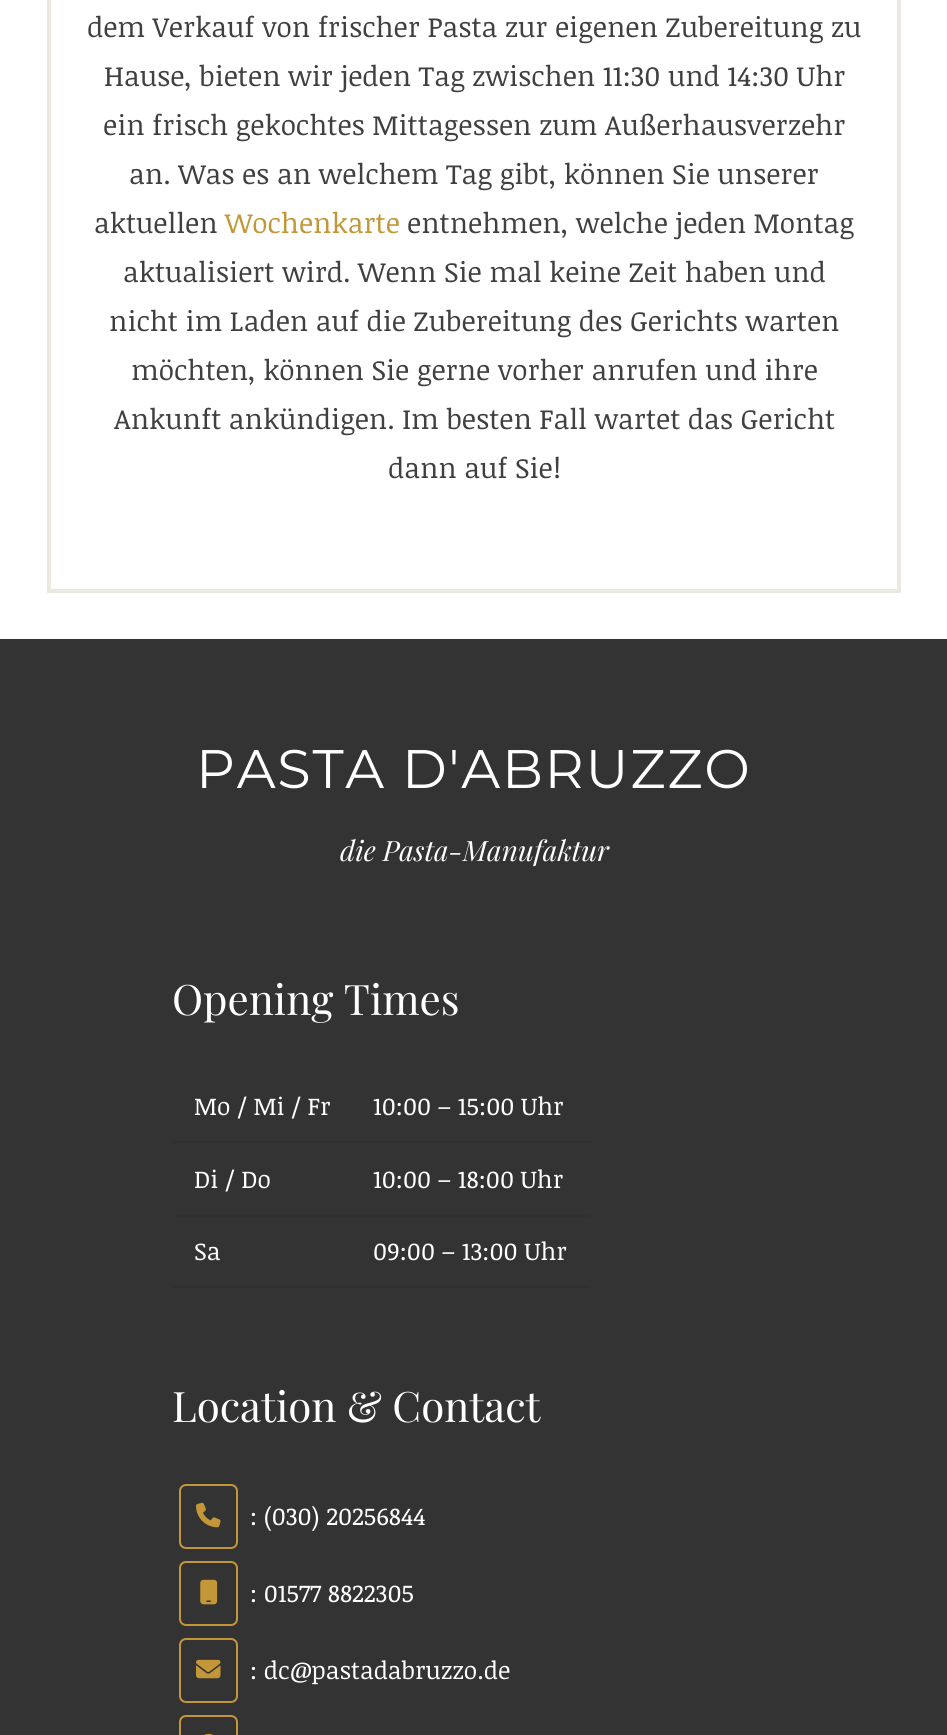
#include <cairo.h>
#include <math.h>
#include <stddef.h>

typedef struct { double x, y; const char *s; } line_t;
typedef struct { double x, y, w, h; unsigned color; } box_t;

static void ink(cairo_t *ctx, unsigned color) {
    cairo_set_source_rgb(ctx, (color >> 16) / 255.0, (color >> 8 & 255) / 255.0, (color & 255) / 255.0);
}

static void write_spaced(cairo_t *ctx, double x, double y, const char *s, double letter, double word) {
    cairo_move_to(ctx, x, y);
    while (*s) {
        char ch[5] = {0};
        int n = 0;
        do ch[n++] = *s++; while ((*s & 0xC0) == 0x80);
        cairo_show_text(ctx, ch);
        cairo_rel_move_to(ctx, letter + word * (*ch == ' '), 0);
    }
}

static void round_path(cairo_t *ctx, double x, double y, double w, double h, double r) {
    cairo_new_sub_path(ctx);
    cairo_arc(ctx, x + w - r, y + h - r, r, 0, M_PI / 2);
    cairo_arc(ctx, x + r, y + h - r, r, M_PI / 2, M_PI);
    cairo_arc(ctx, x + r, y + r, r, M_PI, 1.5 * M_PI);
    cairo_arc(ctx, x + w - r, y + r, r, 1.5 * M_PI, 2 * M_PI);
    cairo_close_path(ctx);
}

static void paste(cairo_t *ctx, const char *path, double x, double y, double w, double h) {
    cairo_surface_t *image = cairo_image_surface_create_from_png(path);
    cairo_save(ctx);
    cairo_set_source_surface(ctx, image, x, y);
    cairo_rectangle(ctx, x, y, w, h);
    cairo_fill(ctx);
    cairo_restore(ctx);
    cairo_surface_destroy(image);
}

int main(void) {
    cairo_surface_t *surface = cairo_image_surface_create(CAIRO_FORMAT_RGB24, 947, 1735);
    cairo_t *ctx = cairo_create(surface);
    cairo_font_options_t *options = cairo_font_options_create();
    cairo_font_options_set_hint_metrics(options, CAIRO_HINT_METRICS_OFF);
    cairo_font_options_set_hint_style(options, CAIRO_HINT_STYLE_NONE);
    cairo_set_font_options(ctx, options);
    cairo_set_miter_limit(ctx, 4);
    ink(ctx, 0xFFFFFF);
    cairo_paint(ctx);
    cairo_rectangle(ctx, 49, -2, 850, 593);
    ink(ctx, 0xECE8E0);
    cairo_set_line_width(ctx, 4);
    cairo_stroke(ctx);
    cairo_select_font_face(ctx, "Noticia Text", CAIRO_FONT_SLANT_NORMAL, CAIRO_FONT_WEIGHT_NORMAL);
    cairo_set_font_size(ctx, 28);
    ink(ctx, 0x404040);
    {
        static const line_t items[] = {
            {87, 37, "dem Verkauf von frischer Pasta zur eigenen Zubereitung zu"},
            {104, 86, "Hause, bieten wir jeden Tag zwischen 11:30 und 14:30 Uhr"},
            {103, 135, "ein frisch gekochtes Mittagessen zum Außerhausverzehr"},
            {129, 184, "an. Was es an welchem Tag gibt, können Sie unserer"},
            {94, 233, "aktuellen"},
        };
        for (size_t i = 0; i < sizeof items / sizeof *items; i++) {
            cairo_move_to(ctx, items[i].x, items[i].y);
            cairo_show_text(ctx, items[i].s);
        }
    }
    ink(ctx, 0xC39738);
    cairo_move_to(ctx, 225, 233);
    cairo_show_text(ctx, "Wochenkarte");
    ink(ctx, 0x404040);
    {
        static const line_t items[] = {
            {407, 233, "entnehmen, welche jeden Montag"},
            {123, 282, "aktualisiert wird. Wenn Sie mal keine Zeit haben und"},
            {109, 331, "nicht im Laden auf die Zubereitung des Gerichts warten"},
            {131, 380, "möchten, können Sie gerne vorher anrufen und ihre"},
            {114, 429, "Ankunft ankündigen. Im besten Fall wartet das Gericht"},
            {388, 478, "dann auf Sie!"},
        };
        for (size_t i = 0; i < sizeof items / sizeof *items; i++) {
            cairo_move_to(ctx, items[i].x, items[i].y);
            cairo_show_text(ctx, items[i].s);
        }
    }
    {
        static const box_t items[] = {
            {0, 639, 947, 1096, 0x333333},
            {172, 1141, 418, 2, 0x303030},
            {172, 1215, 418, 2, 0x303030},
            {172, 1286, 418, 2, 0x303030},
        };
        for (size_t i = 0; i < sizeof items / sizeof *items; i++) {
            ink(ctx, items[i].color);
            cairo_rectangle(ctx, items[i].x, items[i].y, items[i].w, items[i].h);
            cairo_fill(ctx);
        }
    }
    cairo_select_font_face(ctx, "Montserrat", CAIRO_FONT_SLANT_NORMAL, CAIRO_FONT_WEIGHT_NORMAL);
    cairo_set_font_size(ctx, 54.25);
    ink(ctx, 0xFFFFFF);
    write_spaced(ctx, 196, 788, "PASTA D'ABRUZZO", 1.75, 0);
    cairo_select_font_face(ctx, "Playfair Display", CAIRO_FONT_SLANT_ITALIC, CAIRO_FONT_WEIGHT_NORMAL);
    cairo_set_font_size(ctx, 28);
    cairo_move_to(ctx, 340, 861);
    cairo_show_text(ctx, "die Pasta-Manufaktur");
    cairo_select_font_face(ctx, "Playfair Display", CAIRO_FONT_SLANT_NORMAL, CAIRO_FONT_WEIGHT_NORMAL);
    cairo_set_font_size(ctx, 42);
    cairo_move_to(ctx, 172, 1015);
    cairo_show_text(ctx, "Opening Times");
    cairo_select_font_face(ctx, "Noticia Text", CAIRO_FONT_SLANT_NORMAL, CAIRO_FONT_WEIGHT_NORMAL);
    cairo_set_font_size(ctx, 24.5);
    {
        static const line_t items[] = {
            {194, 1115, "Mo / Mi / Fr"},
            {373, 1115, "10:00 – 15:00 Uhr"},
            {194, 1188, "Di / Do"},
            {373, 1188, "10:00 – 18:00 Uhr"},
            {194, 1260, "Sa"},
            {373, 1260, "09:00 – 13:00 Uhr"},
        };
        for (size_t i = 0; i < sizeof items / sizeof *items; i++) {
            cairo_move_to(ctx, items[i].x, items[i].y);
            cairo_show_text(ctx, items[i].s);
        }
    }
    cairo_select_font_face(ctx, "Playfair Display", CAIRO_FONT_SLANT_NORMAL, CAIRO_FONT_WEIGHT_NORMAL);
    cairo_set_font_size(ctx, 42);
    cairo_move_to(ctx, 172, 1422);
    cairo_show_text(ctx, "Location & Contact");
    round_path(ctx, 180, 1485, 57, 63, 6);
    ink(ctx, 0xC39738);
    cairo_set_line_width(ctx, 2);
    cairo_stroke(ctx);
    paste(ctx, "media/1.png", 196, 1502, 25, 26);
    cairo_select_font_face(ctx, "Noticia Text", CAIRO_FONT_SLANT_NORMAL, CAIRO_FONT_WEIGHT_NORMAL);
    cairo_set_font_size(ctx, 24.5);
    ink(ctx, 0xFFFFFF);
    cairo_move_to(ctx, 250, 1525);
    cairo_show_text(ctx, ": (030) 20256844");
    round_path(ctx, 180, 1562, 57, 63, 6);
    ink(ctx, 0xC39738);
    cairo_stroke(ctx);
    paste(ctx, "media/2.png", 200, 1579, 18, 26);
    ink(ctx, 0xFFFFFF);
    cairo_move_to(ctx, 250, 1602);
    cairo_show_text(ctx, ": 01577 8822305");
    round_path(ctx, 180, 1639, 57, 63, 6);
    ink(ctx, 0xC39738);
    cairo_stroke(ctx);
    paste(ctx, "media/3.png", 196, 1659, 25, 20);
    ink(ctx, 0xFFFFFF);
    cairo_move_to(ctx, 250, 1679);
    cairo_show_text(ctx, ": dc@pastadabruzzo.de");
    round_path(ctx, 180, 1716, 57, 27, 6);
    ink(ctx, 0xC39738);
    cairo_stroke(ctx);
    paste(ctx, "media/4.png", 204, 1733, 9, 2);
    cairo_surface_write_to_png(surface, "image.png");
    cairo_font_options_destroy(options);
    cairo_destroy(ctx);
    cairo_surface_destroy(surface);
    return 0;
}
